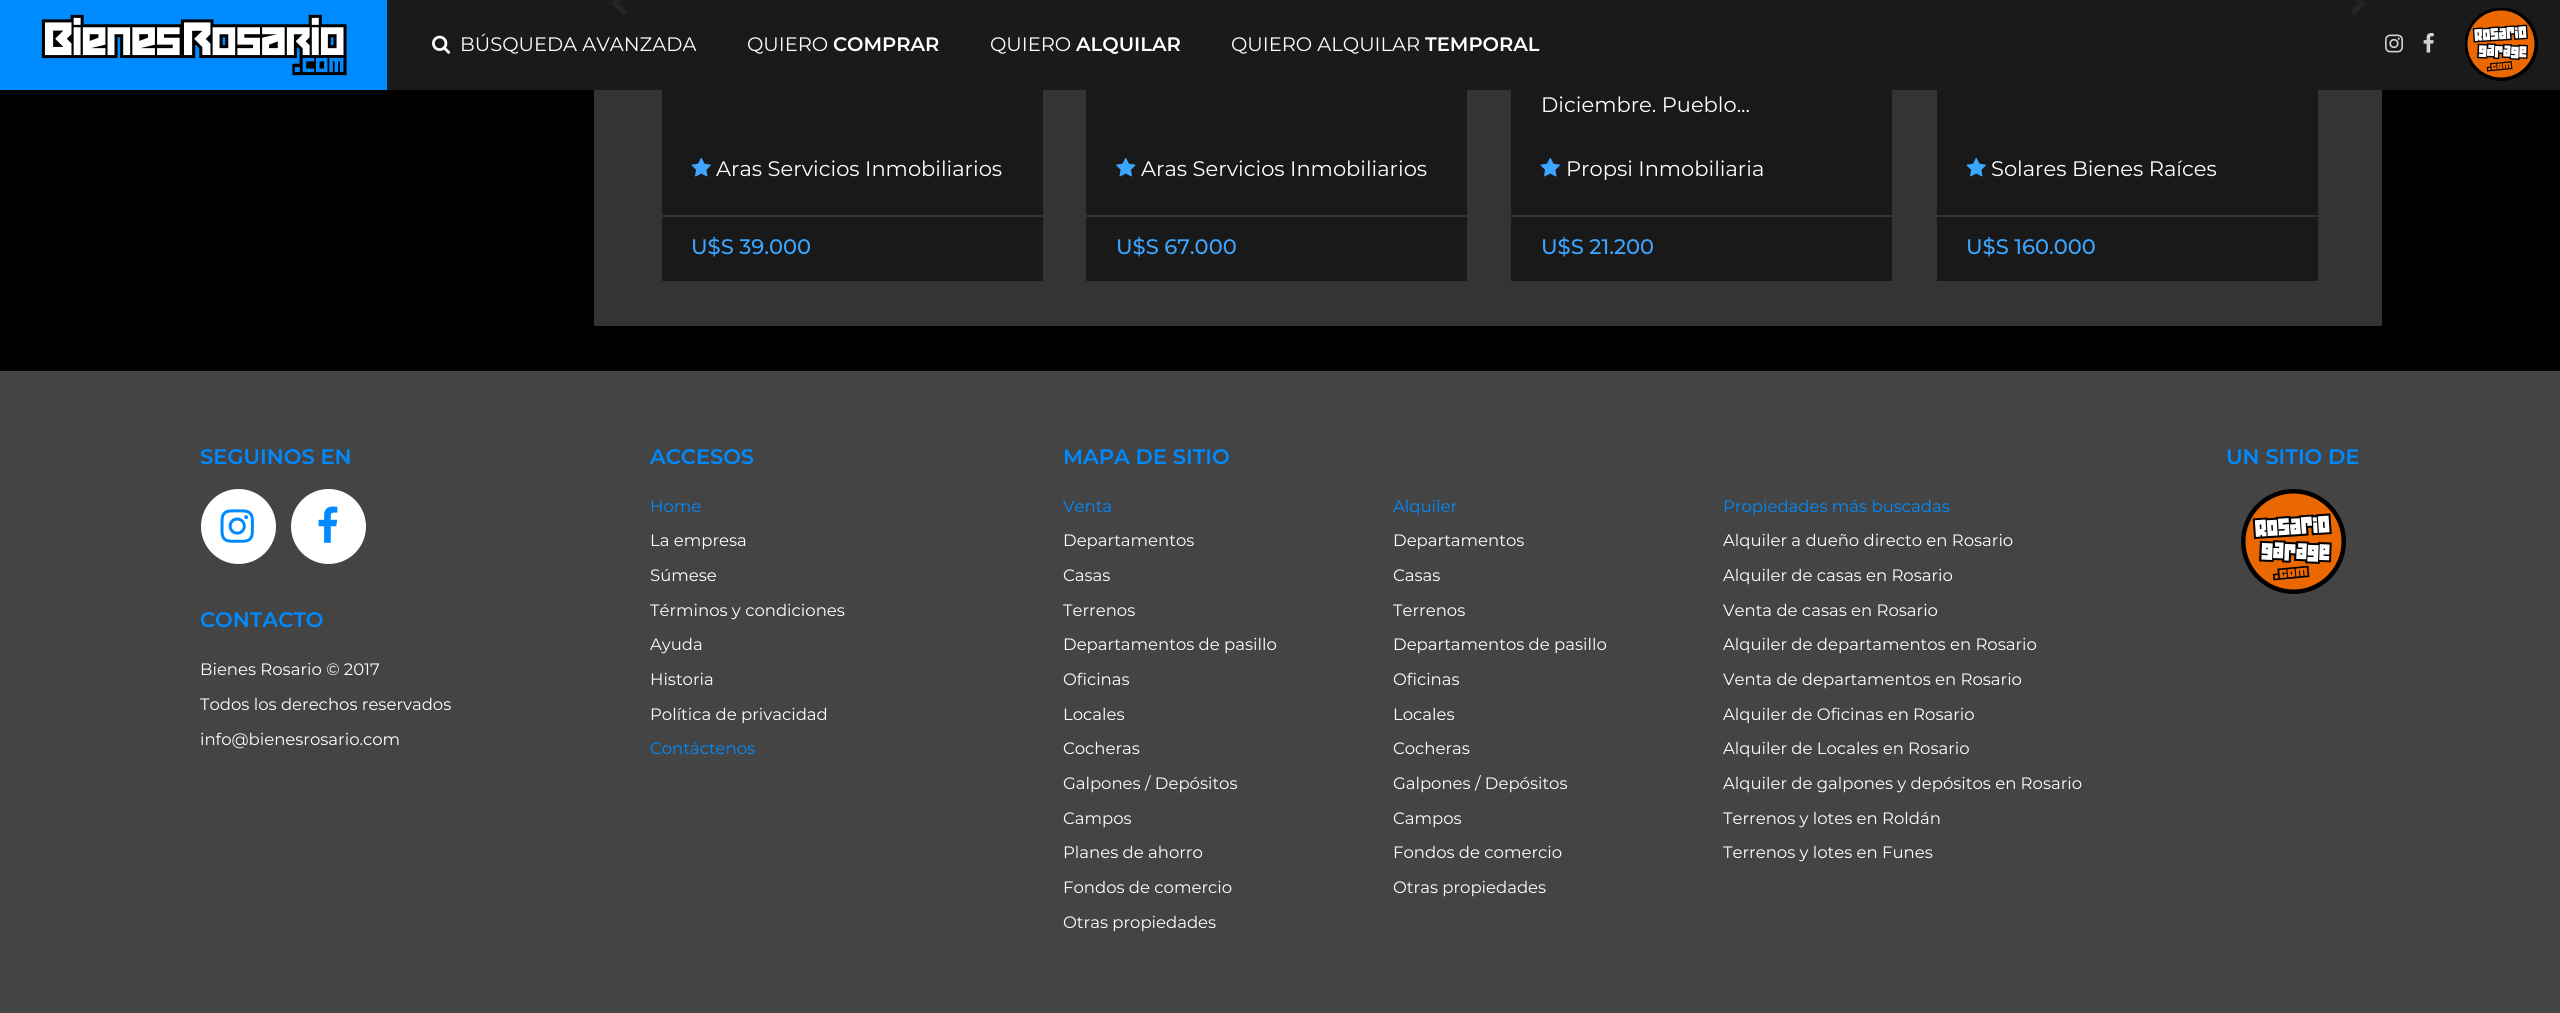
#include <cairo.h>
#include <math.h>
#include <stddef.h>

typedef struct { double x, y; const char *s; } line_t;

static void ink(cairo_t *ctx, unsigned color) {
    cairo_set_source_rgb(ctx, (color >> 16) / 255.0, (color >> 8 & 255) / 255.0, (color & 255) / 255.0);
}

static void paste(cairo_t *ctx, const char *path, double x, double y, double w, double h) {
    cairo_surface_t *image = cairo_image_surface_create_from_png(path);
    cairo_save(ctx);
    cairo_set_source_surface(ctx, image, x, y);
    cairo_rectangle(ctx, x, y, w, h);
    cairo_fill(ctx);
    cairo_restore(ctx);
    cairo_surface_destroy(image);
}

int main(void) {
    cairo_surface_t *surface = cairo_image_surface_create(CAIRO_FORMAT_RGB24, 2560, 1013);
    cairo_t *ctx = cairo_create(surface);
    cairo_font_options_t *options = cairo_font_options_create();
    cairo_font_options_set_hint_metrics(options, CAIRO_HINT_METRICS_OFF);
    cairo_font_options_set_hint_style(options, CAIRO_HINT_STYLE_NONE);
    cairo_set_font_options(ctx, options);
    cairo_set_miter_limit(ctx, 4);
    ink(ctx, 0x000000);
    cairo_paint(ctx);
    ink(ctx, 0x1A1A1A);
    cairo_rectangle(ctx, 387, 0, 2173, 90);
    cairo_fill(ctx);
    ink(ctx, 0x008AFF);
    cairo_rectangle(ctx, 0, 0, 387, 90);
    cairo_fill(ctx);
    paste(ctx, "media/1.png", 41, 14, 306, 62);
    paste(ctx, "media/2.png", 432, 35, 19, 19);
    cairo_select_font_face(ctx, "Montserrat", CAIRO_FONT_SLANT_NORMAL, CAIRO_FONT_WEIGHT_NORMAL);
    cairo_set_font_size(ctx, 19.5);
    ink(ctx, 0xFFFFFF);
    cairo_move_to(ctx, 460, 51);
    cairo_show_text(ctx, "BÚSQUEDA AVANZADA");
    cairo_move_to(ctx, 747, 51);
    cairo_show_text(ctx, "QUIERO");
    cairo_select_font_face(ctx, "Montserrat SemiBold", CAIRO_FONT_SLANT_NORMAL, CAIRO_FONT_WEIGHT_NORMAL);
    cairo_move_to(ctx, 833, 51);
    cairo_show_text(ctx, "COMPRAR");
    cairo_select_font_face(ctx, "Montserrat", CAIRO_FONT_SLANT_NORMAL, CAIRO_FONT_WEIGHT_NORMAL);
    cairo_move_to(ctx, 990, 51);
    cairo_show_text(ctx, "QUIERO");
    cairo_select_font_face(ctx, "Montserrat SemiBold", CAIRO_FONT_SLANT_NORMAL, CAIRO_FONT_WEIGHT_NORMAL);
    cairo_move_to(ctx, 1076, 51);
    cairo_show_text(ctx, "ALQUILAR");
    cairo_select_font_face(ctx, "Montserrat", CAIRO_FONT_SLANT_NORMAL, CAIRO_FONT_WEIGHT_NORMAL);
    cairo_move_to(ctx, 1231, 51);
    cairo_show_text(ctx, "QUIERO ALQUILAR");
    cairo_select_font_face(ctx, "Montserrat SemiBold", CAIRO_FONT_SLANT_NORMAL, CAIRO_FONT_WEIGHT_NORMAL);
    cairo_move_to(ctx, 1425, 51);
    cairo_show_text(ctx, "TEMPORAL");
    paste(ctx, "media/3.png", 2385, 34, 18, 19);
    paste(ctx, "media/4.png", 2423, 33, 11, 20);
    paste(ctx, "media/5.png", 2465, 8, 73, 73);
    ink(ctx, 0x343434);
    cairo_rectangle(ctx, 594, 90, 1788, 236);
    cairo_fill(ctx);
    paste(ctx, "media/6.png", 611, 0, 16, 16);
    paste(ctx, "media/7.png", 2350, 0, 16, 16);
    ink(ctx, 0x191919);
    cairo_rectangle(ctx, 662, 90, 381, 125);
    cairo_fill(ctx);
    paste(ctx, "media/8.png", 691, 157, 20, 20);
    cairo_select_font_face(ctx, "Montserrat", CAIRO_FONT_SLANT_NORMAL, CAIRO_FONT_WEIGHT_NORMAL);
    cairo_set_font_size(ctx, 21);
    ink(ctx, 0xFFFFFF);
    cairo_move_to(ctx, 716, 176);
    cairo_show_text(ctx, "Aras Servicios Inmobiliarios");
    ink(ctx, 0x191919);
    cairo_rectangle(ctx, 662, 217, 381, 64);
    cairo_fill(ctx);
    cairo_select_font_face(ctx, "Montserrat Medium", CAIRO_FONT_SLANT_NORMAL, CAIRO_FONT_WEIGHT_NORMAL);
    ink(ctx, 0x3BA5FF);
    cairo_move_to(ctx, 691, 254);
    cairo_show_text(ctx, "U$S 39.000");
    ink(ctx, 0x191919);
    cairo_rectangle(ctx, 1086, 90, 381, 125);
    cairo_fill(ctx);
    paste(ctx, "media/9.png", 1116, 157, 20, 20);
    cairo_select_font_face(ctx, "Montserrat", CAIRO_FONT_SLANT_NORMAL, CAIRO_FONT_WEIGHT_NORMAL);
    ink(ctx, 0xFFFFFF);
    cairo_move_to(ctx, 1141, 176);
    cairo_show_text(ctx, "Aras Servicios Inmobiliarios");
    ink(ctx, 0x191919);
    cairo_rectangle(ctx, 1086, 217, 381, 64);
    cairo_fill(ctx);
    cairo_select_font_face(ctx, "Montserrat Medium", CAIRO_FONT_SLANT_NORMAL, CAIRO_FONT_WEIGHT_NORMAL);
    ink(ctx, 0x3BA5FF);
    cairo_move_to(ctx, 1116, 254);
    cairo_show_text(ctx, "U$S 67.000");
    ink(ctx, 0x191919);
    cairo_rectangle(ctx, 1511, 90, 381, 125);
    cairo_fill(ctx);
    cairo_select_font_face(ctx, "Montserrat", CAIRO_FONT_SLANT_NORMAL, CAIRO_FONT_WEIGHT_NORMAL);
    ink(ctx, 0xFFFFFF);
    cairo_move_to(ctx, 1541, 112);
    cairo_show_text(ctx, "Diciembre. Pueblo...");
    paste(ctx, "media/8.png", 1540, 157, 20, 20);
    cairo_move_to(ctx, 1566, 176);
    cairo_show_text(ctx, "Propsi Inmobiliaria");
    ink(ctx, 0x191919);
    cairo_rectangle(ctx, 1511, 217, 381, 64);
    cairo_fill(ctx);
    cairo_select_font_face(ctx, "Montserrat Medium", CAIRO_FONT_SLANT_NORMAL, CAIRO_FONT_WEIGHT_NORMAL);
    ink(ctx, 0x3BA5FF);
    cairo_move_to(ctx, 1541, 254);
    cairo_show_text(ctx, "U$S 21.200");
    ink(ctx, 0x191919);
    cairo_rectangle(ctx, 1937, 90, 381, 125);
    cairo_fill(ctx);
    paste(ctx, "media/8.png", 1966, 157, 20, 20);
    cairo_select_font_face(ctx, "Montserrat", CAIRO_FONT_SLANT_NORMAL, CAIRO_FONT_WEIGHT_NORMAL);
    ink(ctx, 0xFFFFFF);
    cairo_move_to(ctx, 1991, 176);
    cairo_show_text(ctx, "Solares Bienes Raíces");
    ink(ctx, 0x191919);
    cairo_rectangle(ctx, 1937, 217, 381, 64);
    cairo_fill(ctx);
    cairo_select_font_face(ctx, "Montserrat Medium", CAIRO_FONT_SLANT_NORMAL, CAIRO_FONT_WEIGHT_NORMAL);
    ink(ctx, 0x3BA5FF);
    cairo_move_to(ctx, 1966, 254);
    cairo_show_text(ctx, "U$S 160.000");
    ink(ctx, 0x444444);
    cairo_rectangle(ctx, 0, 371, 2560, 642);
    cairo_fill(ctx);
    cairo_select_font_face(ctx, "Montserrat SemiBold", CAIRO_FONT_SLANT_NORMAL, CAIRO_FONT_WEIGHT_NORMAL);
    ink(ctx, 0x008AFF);
    cairo_move_to(ctx, 200, 464);
    cairo_show_text(ctx, "SEGUINOS EN");
    ink(ctx, 0xFFFFFF);
    cairo_new_path(ctx);
    cairo_arc(ctx, 238.5, 526.5, 37.5, 0, 2 * M_PI);
    cairo_fill(ctx);
    paste(ctx, "media/10.png", 220, 509, 34, 34);
    cairo_arc(ctx, 328.5, 526.5, 37.5, 0, 2 * M_PI);
    cairo_fill(ctx);
    paste(ctx, "media/11.png", 318, 506, 20, 37);
    ink(ctx, 0x008AFF);
    cairo_move_to(ctx, 200, 627);
    cairo_show_text(ctx, "CONTACTO");
    cairo_select_font_face(ctx, "Montserrat", CAIRO_FONT_SLANT_NORMAL, CAIRO_FONT_WEIGHT_NORMAL);
    cairo_set_font_size(ctx, 16.5);
    ink(ctx, 0xFFFFFF);
    {
        static const line_t items[] = {
            {200, 675, "Bienes Rosario © 2017"},
            {200, 710, "Todos los derechos reservados"},
            {200, 745, "info@bienesrosario.com"},
        };
        for (size_t i = 0; i < sizeof items / sizeof *items; i++) {
            cairo_move_to(ctx, items[i].x, items[i].y);
            cairo_show_text(ctx, items[i].s);
        }
    }
    cairo_select_font_face(ctx, "Montserrat SemiBold", CAIRO_FONT_SLANT_NORMAL, CAIRO_FONT_WEIGHT_NORMAL);
    cairo_set_font_size(ctx, 21);
    ink(ctx, 0x008AFF);
    cairo_move_to(ctx, 650, 464);
    cairo_show_text(ctx, "ACCESOS");
    cairo_select_font_face(ctx, "Montserrat", CAIRO_FONT_SLANT_NORMAL, CAIRO_FONT_WEIGHT_NORMAL);
    cairo_set_font_size(ctx, 16.5);
    cairo_move_to(ctx, 650, 512);
    cairo_show_text(ctx, "Home");
    ink(ctx, 0xFFFFFF);
    {
        static const line_t items[] = {
            {650, 546, "La empresa"},
            {650, 581, "Súmese"},
            {650, 616, "Términos y condiciones"},
            {650, 650, "Ayuda"},
            {650, 685, "Historia"},
            {650, 720, "Política de privacidad"},
        };
        for (size_t i = 0; i < sizeof items / sizeof *items; i++) {
            cairo_move_to(ctx, items[i].x, items[i].y);
            cairo_show_text(ctx, items[i].s);
        }
    }
    ink(ctx, 0x008AFF);
    cairo_move_to(ctx, 650, 754);
    cairo_show_text(ctx, "Contáctenos");
    cairo_select_font_face(ctx, "Montserrat SemiBold", CAIRO_FONT_SLANT_NORMAL, CAIRO_FONT_WEIGHT_NORMAL);
    cairo_set_font_size(ctx, 21);
    cairo_move_to(ctx, 1063, 464);
    cairo_show_text(ctx, "MAPA DE SITIO");
    cairo_select_font_face(ctx, "Montserrat", CAIRO_FONT_SLANT_NORMAL, CAIRO_FONT_WEIGHT_NORMAL);
    cairo_set_font_size(ctx, 16.5);
    cairo_move_to(ctx, 1063, 512);
    cairo_show_text(ctx, "Venta");
    ink(ctx, 0xFFFFFF);
    {
        static const line_t items[] = {
            {1063, 546, "Departamentos"},
            {1063, 581, "Casas"},
            {1063, 616, "Terrenos"},
            {1063, 650, "Departamentos de pasillo"},
            {1063, 685, "Oficinas"},
            {1063, 720, "Locales"},
            {1063, 754, "Cocheras"},
            {1063, 789, "Galpones / Depósitos"},
            {1063, 824, "Campos"},
            {1063, 858, "Planes de ahorro"},
            {1063, 893, "Fondos de comercio"},
            {1063, 928, "Otras propiedades"},
        };
        for (size_t i = 0; i < sizeof items / sizeof *items; i++) {
            cairo_move_to(ctx, items[i].x, items[i].y);
            cairo_show_text(ctx, items[i].s);
        }
    }
    ink(ctx, 0x008AFF);
    cairo_move_to(ctx, 1393, 512);
    cairo_show_text(ctx, "Alquiler");
    ink(ctx, 0xFFFFFF);
    {
        static const line_t items[] = {
            {1393, 546, "Departamentos"},
            {1393, 581, "Casas"},
            {1393, 616, "Terrenos"},
            {1393, 650, "Departamentos de pasillo"},
            {1393, 685, "Oficinas"},
            {1393, 720, "Locales"},
            {1393, 754, "Cocheras"},
            {1393, 789, "Galpones / Depósitos"},
            {1393, 824, "Campos"},
            {1393, 858, "Fondos de comercio"},
            {1393, 893, "Otras propiedades"},
        };
        for (size_t i = 0; i < sizeof items / sizeof *items; i++) {
            cairo_move_to(ctx, items[i].x, items[i].y);
            cairo_show_text(ctx, items[i].s);
        }
    }
    ink(ctx, 0x008AFF);
    cairo_move_to(ctx, 1723, 512);
    cairo_show_text(ctx, "Propiedades más buscadas");
    ink(ctx, 0xFFFFFF);
    {
        static const line_t items[] = {
            {1723, 546, "Alquiler a dueño directo en Rosario"},
            {1723, 581, "Alquiler de casas en Rosario"},
            {1723, 616, "Venta de casas en Rosario"},
            {1723, 650, "Alquiler de departamentos en Rosario"},
            {1723, 685, "Venta de departamentos en Rosario"},
            {1723, 720, "Alquiler de Oficinas en Rosario"},
            {1723, 754, "Alquiler de Locales en Rosario"},
            {1723, 789, "Alquiler de galpones y depósitos en Rosario"},
            {1723, 824, "Terrenos y lotes en Roldán"},
            {1723, 858, "Terrenos y lotes en Funes"},
        };
        for (size_t i = 0; i < sizeof items / sizeof *items; i++) {
            cairo_move_to(ctx, items[i].x, items[i].y);
            cairo_show_text(ctx, items[i].s);
        }
    }
    cairo_select_font_face(ctx, "Montserrat SemiBold", CAIRO_FONT_SLANT_NORMAL, CAIRO_FONT_WEIGHT_NORMAL);
    cairo_set_font_size(ctx, 21);
    ink(ctx, 0x008AFF);
    cairo_move_to(ctx, 2226, 464);
    cairo_show_text(ctx, "UN SITIO DE");
    paste(ctx, "media/12.png", 2241, 489, 105, 105);
    cairo_surface_write_to_png(surface, "image.png");
    cairo_font_options_destroy(options);
    cairo_destroy(ctx);
    cairo_surface_destroy(surface);
    return 0;
}
